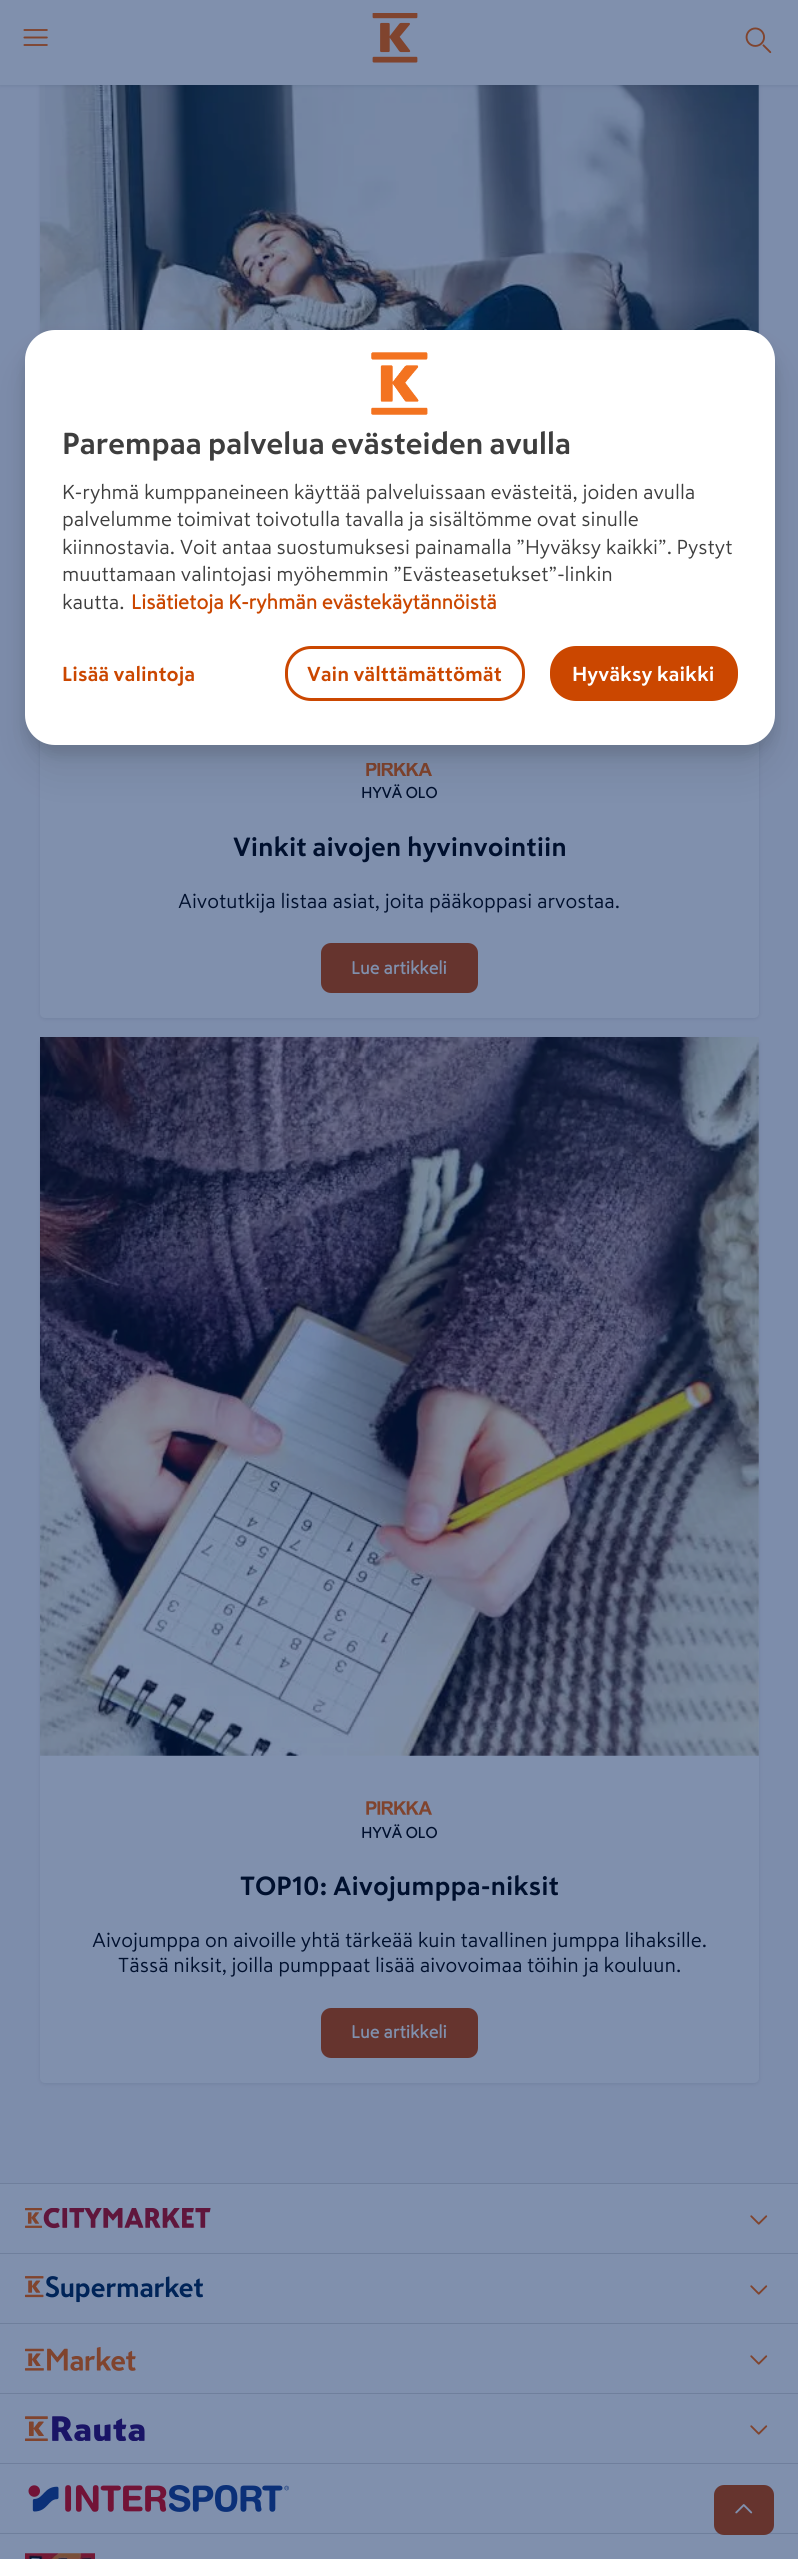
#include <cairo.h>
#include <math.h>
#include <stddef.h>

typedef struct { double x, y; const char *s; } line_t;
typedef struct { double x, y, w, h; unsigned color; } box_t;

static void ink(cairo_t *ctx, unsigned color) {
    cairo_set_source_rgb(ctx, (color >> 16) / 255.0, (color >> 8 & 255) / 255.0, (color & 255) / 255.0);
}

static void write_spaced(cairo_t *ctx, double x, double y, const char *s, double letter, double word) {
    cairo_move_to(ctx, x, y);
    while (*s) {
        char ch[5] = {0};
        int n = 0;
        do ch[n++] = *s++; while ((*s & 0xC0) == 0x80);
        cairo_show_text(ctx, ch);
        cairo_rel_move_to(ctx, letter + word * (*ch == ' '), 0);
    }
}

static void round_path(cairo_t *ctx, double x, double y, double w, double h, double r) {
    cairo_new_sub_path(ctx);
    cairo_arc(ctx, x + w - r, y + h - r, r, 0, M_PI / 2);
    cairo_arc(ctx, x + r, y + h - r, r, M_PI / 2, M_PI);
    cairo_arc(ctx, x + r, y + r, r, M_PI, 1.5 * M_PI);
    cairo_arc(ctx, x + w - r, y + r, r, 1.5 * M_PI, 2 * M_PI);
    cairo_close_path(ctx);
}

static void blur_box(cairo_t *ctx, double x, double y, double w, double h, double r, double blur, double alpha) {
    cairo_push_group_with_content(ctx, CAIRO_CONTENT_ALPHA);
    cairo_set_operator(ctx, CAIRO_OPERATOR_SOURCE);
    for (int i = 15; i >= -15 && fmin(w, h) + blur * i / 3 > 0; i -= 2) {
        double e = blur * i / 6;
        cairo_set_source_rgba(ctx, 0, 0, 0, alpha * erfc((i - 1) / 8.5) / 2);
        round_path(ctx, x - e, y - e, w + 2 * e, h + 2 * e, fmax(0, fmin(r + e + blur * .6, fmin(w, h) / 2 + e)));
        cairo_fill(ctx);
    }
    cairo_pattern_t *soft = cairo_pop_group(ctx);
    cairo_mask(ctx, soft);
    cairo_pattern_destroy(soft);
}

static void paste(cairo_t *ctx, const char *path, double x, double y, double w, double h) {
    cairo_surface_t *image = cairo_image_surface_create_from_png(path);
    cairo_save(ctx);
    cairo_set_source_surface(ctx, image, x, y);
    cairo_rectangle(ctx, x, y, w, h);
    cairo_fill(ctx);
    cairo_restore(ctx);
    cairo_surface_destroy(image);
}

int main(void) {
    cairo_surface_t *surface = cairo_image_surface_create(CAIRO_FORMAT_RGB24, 798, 2559);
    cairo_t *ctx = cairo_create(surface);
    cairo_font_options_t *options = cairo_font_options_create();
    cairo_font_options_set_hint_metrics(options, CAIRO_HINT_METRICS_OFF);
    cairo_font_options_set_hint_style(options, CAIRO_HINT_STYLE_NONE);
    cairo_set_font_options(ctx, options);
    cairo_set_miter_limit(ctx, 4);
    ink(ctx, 0x7D8DAB);
    cairo_paint(ctx);
    ink(ctx, 0x00102E);
    blur_box(ctx, 40, 0, 719, 1019, 5, 2, 0.1);
    ink(ctx, 0x8090AD);
    round_path(ctx, 40, -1, 719, 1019, 5);
    cairo_fill(ctx);
    paste(ctx, "media/5.png", 40, 85, 719, 249);
    paste(ctx, "media/6.png", 366, 763, 66, 13);
    ink(ctx, 0x000000);
    blur_box(ctx, 23, 353, 755, 420, 33, 20, 0.08);
    blur_box(ctx, 25, 340, 750, 415, 30, 7.5, 0.12);
    ink(ctx, 0xFFFFFF);
    round_path(ctx, 25, 330, 750, 415, 30);
    cairo_fill(ctx);
    paste(ctx, "media/1.png", 371, 352, 57, 63);
    cairo_select_font_face(ctx, "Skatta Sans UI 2", CAIRO_FONT_SLANT_NORMAL, CAIRO_FONT_WEIGHT_BOLD);
    cairo_set_font_size(ctx, 30);
    ink(ctx, 0x3E3E3E);
    write_spaced(ctx, 62, 454, "Parempaa palvelua evästeiden avulla", -0.3, 0);
    cairo_select_font_face(ctx, "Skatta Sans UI", CAIRO_FONT_SLANT_NORMAL, CAIRO_FONT_WEIGHT_NORMAL);
    cairo_set_font_size(ctx, 20);
    {
        static const line_t items[] = {
            {62, 499, "K-ryhmä kumppaneineen käyttää palveluissaan evästeitä, joiden avulla"},
            {62, 526, "palvelumme toimivat toivotulla tavalla ja sisältömme ovat sinulle"},
            {62, 554, "kiinnostavia. Voit antaa suostumuksesi painamalla ”Hyväksy kaikki”. Pystyt"},
            {62, 581, "muuttamaan valintojasi myöhemmin ”Evästeasetukset”-linkin"},
            {62, 609, "kautta."},
        };
        for (size_t i = 0; i < sizeof items / sizeof *items; i++) {
            cairo_move_to(ctx, items[i].x, items[i].y);
            cairo_show_text(ctx, items[i].s);
        }
    }
    cairo_select_font_face(ctx, "Skatta Sans UI", CAIRO_FONT_SLANT_NORMAL, CAIRO_FONT_WEIGHT_BOLD);
    ink(ctx, 0xCB4700);
    cairo_move_to(ctx, 131, 609);
    cairo_show_text(ctx, "Lisätietoja K-ryhmän evästekäytännöistä");
    cairo_select_font_face(ctx, "Skatta Sans UI 2", CAIRO_FONT_SLANT_NORMAL, CAIRO_FONT_WEIGHT_BOLD);
    cairo_move_to(ctx, 62, 681);
    cairo_show_text(ctx, "Lisää valintoja");
    round_path(ctx, 286.5, 647.5, 237, 52, 24.5);
    cairo_set_line_width(ctx, 3);
    cairo_stroke(ctx);
    cairo_move_to(ctx, 307, 681);
    cairo_show_text(ctx, "Vain välttämättömät");
    round_path(ctx, 551.5, 647.5, 185, 52, 24.5);
    cairo_fill_preserve(ctx);
    cairo_stroke(ctx);
    ink(ctx, 0xFFFFFF);
    cairo_move_to(ctx, 572, 681);
    cairo_show_text(ctx, "Hyväksy kaikki");
    ink(ctx, 0x00102E);
    blur_box(ctx, 0, -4, 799, 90, 0, 2, 0.1);
    ink(ctx, 0x8090AD);
    cairo_rectangle(ctx, 0, 0, 798, 85);
    cairo_fill(ctx);
    paste(ctx, "media/2.png", 23, 29, 25, 17);
    paste(ctx, "media/3.png", 372, 13, 46, 50);
    paste(ctx, "media/4.png", 745, 27, 27, 27);
    cairo_select_font_face(ctx, "Skatta Sans UI", CAIRO_FONT_SLANT_NORMAL, CAIRO_FONT_WEIGHT_BOLD);
    cairo_set_font_size(ctx, 15);
    ink(ctx, 0x00102E);
    cairo_move_to(ctx, 361, 798);
    cairo_show_text(ctx, "HYVÄ OLO");
    cairo_select_font_face(ctx, "Skatta Sans UI 2", CAIRO_FONT_SLANT_NORMAL, CAIRO_FONT_WEIGHT_BOLD);
    cairo_set_font_size(ctx, 26);
    cairo_move_to(ctx, 233, 856);
    cairo_show_text(ctx, "Vinkit aivojen hyvinvointiin");
    cairo_select_font_face(ctx, "Skatta Sans UI", CAIRO_FONT_SLANT_NORMAL, CAIRO_FONT_WEIGHT_NORMAL);
    cairo_set_font_size(ctx, 20);
    cairo_move_to(ctx, 178, 908);
    cairo_show_text(ctx, "Aivotutkija listaa asiat, joita pääkoppasi arvostaa.");
    ink(ctx, 0x66342E);
    round_path(ctx, 321, 943, 157, 50, 10);
    cairo_fill(ctx);
    cairo_select_font_face(ctx, "Skatta Sans UI", CAIRO_FONT_SLANT_NORMAL, CAIRO_FONT_WEIGHT_BOLD);
    cairo_set_font_size(ctx, 17.5);
    ink(ctx, 0x8090AD);
    cairo_move_to(ctx, 351, 974);
    cairo_show_text(ctx, "Lue artikkeli");
    ink(ctx, 0x00102E);
    blur_box(ctx, 40, 1039, 719, 1045, 5, 2, 0.1);
    ink(ctx, 0x8090AD);
    round_path(ctx, 40, 1038, 719, 1045, 5);
    cairo_fill(ctx);
    paste(ctx, "media/7.png", 40, 1037, 719, 719);
    paste(ctx, "media/8.png", 366, 1801, 66, 14);
    cairo_set_font_size(ctx, 15);
    ink(ctx, 0x00102E);
    cairo_move_to(ctx, 361, 1838);
    cairo_show_text(ctx, "HYVÄ OLO");
    cairo_select_font_face(ctx, "Skatta Sans UI 2", CAIRO_FONT_SLANT_NORMAL, CAIRO_FONT_WEIGHT_BOLD);
    cairo_set_font_size(ctx, 26);
    cairo_move_to(ctx, 240, 1895);
    cairo_show_text(ctx, "TOP10: Aivojumppa-niksit");
    cairo_select_font_face(ctx, "Skatta Sans UI", CAIRO_FONT_SLANT_NORMAL, CAIRO_FONT_WEIGHT_NORMAL);
    cairo_set_font_size(ctx, 20);
    cairo_move_to(ctx, 92, 1947);
    cairo_show_text(ctx, "Aivojumppa on aivoille yhtä tärkeää kuin tavallinen jumppa lihaksille.");
    cairo_move_to(ctx, 118, 1972);
    cairo_show_text(ctx, "Tässä niksit, joilla pumppaat lisää aivovoimaa töihin ja kouluun.");
    ink(ctx, 0x66342E);
    round_path(ctx, 321, 2008, 157, 50, 10);
    cairo_fill(ctx);
    cairo_select_font_face(ctx, "Skatta Sans UI", CAIRO_FONT_SLANT_NORMAL, CAIRO_FONT_WEIGHT_BOLD);
    cairo_set_font_size(ctx, 17.5);
    ink(ctx, 0x8090AD);
    cairo_move_to(ctx, 351, 2038);
    cairo_show_text(ctx, "Lue artikkeli");
    {
        static const box_t items[] = {
            {0, 2184, 798, 375, 0x8090AD},
            {0, 2183, 798, 1, 0x6F7F9C},
            {0, 2253, 798, 1, 0x6F7F9C},
        };
        for (size_t i = 0; i < sizeof items / sizeof *items; i++) {
            ink(ctx, items[i].color);
            cairo_rectangle(ctx, items[i].x, items[i].y, items[i].w, items[i].h);
            cairo_fill(ctx);
        }
    }
    paste(ctx, "media/9.png", 25, 2208, 186, 21);
    paste(ctx, "media/10.png", 750, 2215, 18, 10);
    cairo_rectangle(ctx, 0, 2323, 798, 1);
    cairo_fill(ctx);
    paste(ctx, "media/11.png", 25, 2276, 178, 27);
    paste(ctx, "media/10.png", 750, 2285, 18, 10);
    cairo_rectangle(ctx, 0, 2393, 798, 1);
    cairo_fill(ctx);
    paste(ctx, "media/12.png", 25, 2347, 111, 24);
    paste(ctx, "media/10.png", 750, 2355, 18, 10);
    cairo_rectangle(ctx, 0, 2463, 798, 1);
    cairo_fill(ctx);
    paste(ctx, "media/13.png", 25, 2416, 120, 25);
    paste(ctx, "media/10.png", 750, 2425, 18, 10);
    cairo_rectangle(ctx, 0, 2533, 798, 1);
    cairo_fill(ctx);
    paste(ctx, "media/14.png", 28, 2485, 261, 27);
    paste(ctx, "media/15.png", 25, 2553, 70, 6);
    ink(ctx, 0x66342E);
    round_path(ctx, 714, 2485, 60, 50, 10);
    cairo_fill(ctx);
    paste(ctx, "media/16.png", 735, 2504, 18, 10);
    cairo_surface_write_to_png(surface, "image.png");
    cairo_font_options_destroy(options);
    cairo_destroy(ctx);
    cairo_surface_destroy(surface);
    return 0;
}
